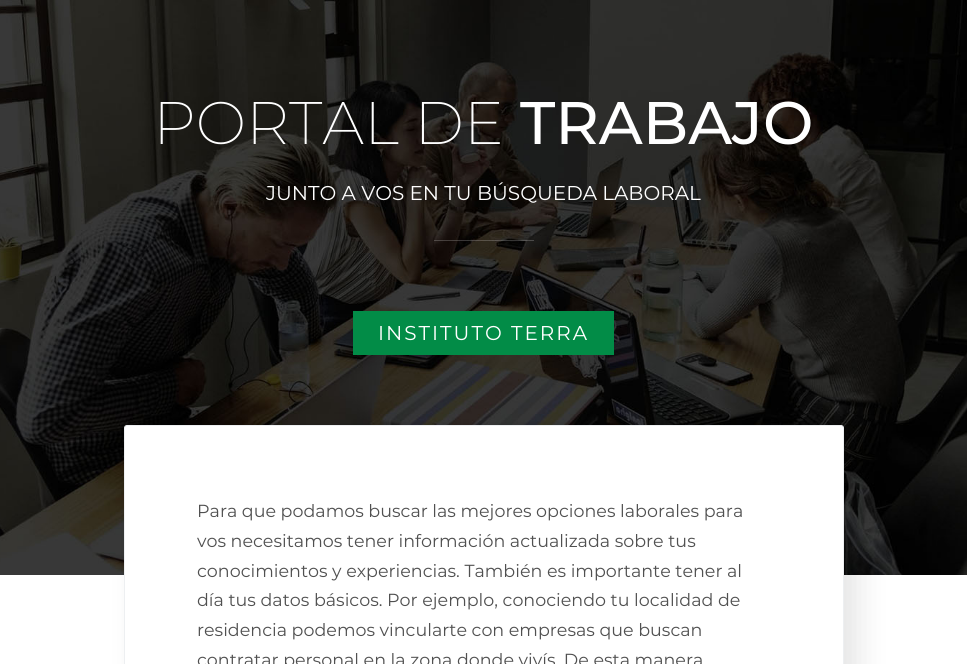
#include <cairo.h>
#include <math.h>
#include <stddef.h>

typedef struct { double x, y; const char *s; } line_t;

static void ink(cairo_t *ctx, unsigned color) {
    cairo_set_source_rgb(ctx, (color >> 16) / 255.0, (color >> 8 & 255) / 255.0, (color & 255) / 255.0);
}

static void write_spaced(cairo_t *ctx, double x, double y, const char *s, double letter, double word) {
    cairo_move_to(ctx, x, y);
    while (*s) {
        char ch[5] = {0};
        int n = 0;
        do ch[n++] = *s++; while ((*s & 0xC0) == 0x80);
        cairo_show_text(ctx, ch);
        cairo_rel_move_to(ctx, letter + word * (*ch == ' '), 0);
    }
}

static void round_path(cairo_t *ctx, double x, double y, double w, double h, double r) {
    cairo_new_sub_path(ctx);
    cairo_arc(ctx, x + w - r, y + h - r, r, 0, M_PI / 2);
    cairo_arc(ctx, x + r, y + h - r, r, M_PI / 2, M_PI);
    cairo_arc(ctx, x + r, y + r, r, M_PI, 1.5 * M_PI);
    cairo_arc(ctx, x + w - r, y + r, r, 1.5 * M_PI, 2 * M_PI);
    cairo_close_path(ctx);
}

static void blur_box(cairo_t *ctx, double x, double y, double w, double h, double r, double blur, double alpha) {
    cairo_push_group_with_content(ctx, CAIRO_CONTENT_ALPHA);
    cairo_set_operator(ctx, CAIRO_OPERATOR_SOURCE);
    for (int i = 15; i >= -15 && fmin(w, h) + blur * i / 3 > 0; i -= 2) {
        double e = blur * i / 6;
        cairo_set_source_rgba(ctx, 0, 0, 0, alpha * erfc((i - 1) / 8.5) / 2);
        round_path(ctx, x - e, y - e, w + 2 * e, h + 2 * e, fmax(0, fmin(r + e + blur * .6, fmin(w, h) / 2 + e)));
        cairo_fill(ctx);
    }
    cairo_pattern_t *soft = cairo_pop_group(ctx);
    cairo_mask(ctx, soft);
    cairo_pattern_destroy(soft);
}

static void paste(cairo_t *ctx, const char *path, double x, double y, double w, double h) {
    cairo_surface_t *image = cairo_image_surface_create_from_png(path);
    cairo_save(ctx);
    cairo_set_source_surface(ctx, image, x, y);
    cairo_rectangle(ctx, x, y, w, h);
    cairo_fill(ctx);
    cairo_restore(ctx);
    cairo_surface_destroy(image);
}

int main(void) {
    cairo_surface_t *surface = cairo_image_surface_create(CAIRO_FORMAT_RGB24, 967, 664);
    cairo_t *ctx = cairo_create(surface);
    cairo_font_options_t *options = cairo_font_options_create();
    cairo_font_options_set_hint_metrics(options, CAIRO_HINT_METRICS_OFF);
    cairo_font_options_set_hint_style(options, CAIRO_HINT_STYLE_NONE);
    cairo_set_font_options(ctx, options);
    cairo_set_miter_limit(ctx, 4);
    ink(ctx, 0xFFFFFF);
    cairo_paint(ctx);
    paste(ctx, "media/1.png", 0, 0, 967, 575);
    cairo_select_font_face(ctx, "Montserrat ExtraLight", CAIRO_FONT_SLANT_NORMAL, CAIRO_FONT_WEIGHT_NORMAL);
    cairo_set_font_size(ctx, 60);
    ink(ctx, 0xFFFFFF);
    cairo_move_to(ctx, 153, 144);
    cairo_show_text(ctx, "PORTAL DE");
    cairo_select_font_face(ctx, "Montserrat Medium", CAIRO_FONT_SLANT_NORMAL, CAIRO_FONT_WEIGHT_NORMAL);
    cairo_move_to(ctx, 520, 144);
    cairo_show_text(ctx, "TRABAJO");
    cairo_select_font_face(ctx, "Montserrat", CAIRO_FONT_SLANT_NORMAL, CAIRO_FONT_WEIGHT_NORMAL);
    cairo_set_font_size(ctx, 20);
    cairo_move_to(ctx, 266, 200);
    cairo_show_text(ctx, "JUNTO A VOS EN TU BÚSQUEDA LABORAL");
    cairo_set_source_rgba(ctx, 1, 1, 1, 0.2);
    cairo_rectangle(ctx, 434, 240, 100, 1);
    cairo_fill(ctx);
    ink(ctx, 0x028C47);
    cairo_rectangle(ctx, 353, 311, 261, 44);
    cairo_fill(ctx);
    ink(ctx, 0xFFFFFF);
    write_spaced(ctx, 378, 340, "INSTITUTO TERRA", 2, 0);
    ink(ctx, 0x000000);
    blur_box(ctx, 139, 440, 720, 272, 3, 15, 0.1);
    ink(ctx, 0xFFFFFF);
    round_path(ctx, 124.5, 425.5, 719, 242, 2.5);
    cairo_fill_preserve(ctx);
    ink(ctx, 0xEDEFF1);
    cairo_set_line_width(ctx, 1);
    cairo_stroke(ctx);
    cairo_set_font_size(ctx, 17.5);
    ink(ctx, 0x505050);
    {
        static const line_t items[] = {
            {197, 517, "Para que podamos buscar las mejores opciones laborales para"},
            {197, 547, "vos necesitamos tener información actualizada sobre tus"},
            {197, 577, "conocimientos y experiencias. También es importante tener al"},
            {197, 606, "día tus datos básicos. Por ejemplo, conociendo tu localidad de"},
            {197, 636, "residencia podemos vincularte con empresas que buscan"},
            {197, 666, "contratar personal en la zona donde vivís. De esta manera"},
        };
        for (size_t i = 0; i < sizeof items / sizeof *items; i++) {
            cairo_move_to(ctx, items[i].x, items[i].y);
            cairo_show_text(ctx, items[i].s);
        }
    }
    cairo_surface_write_to_png(surface, "image.png");
    cairo_font_options_destroy(options);
    cairo_destroy(ctx);
    cairo_surface_destroy(surface);
    return 0;
}
